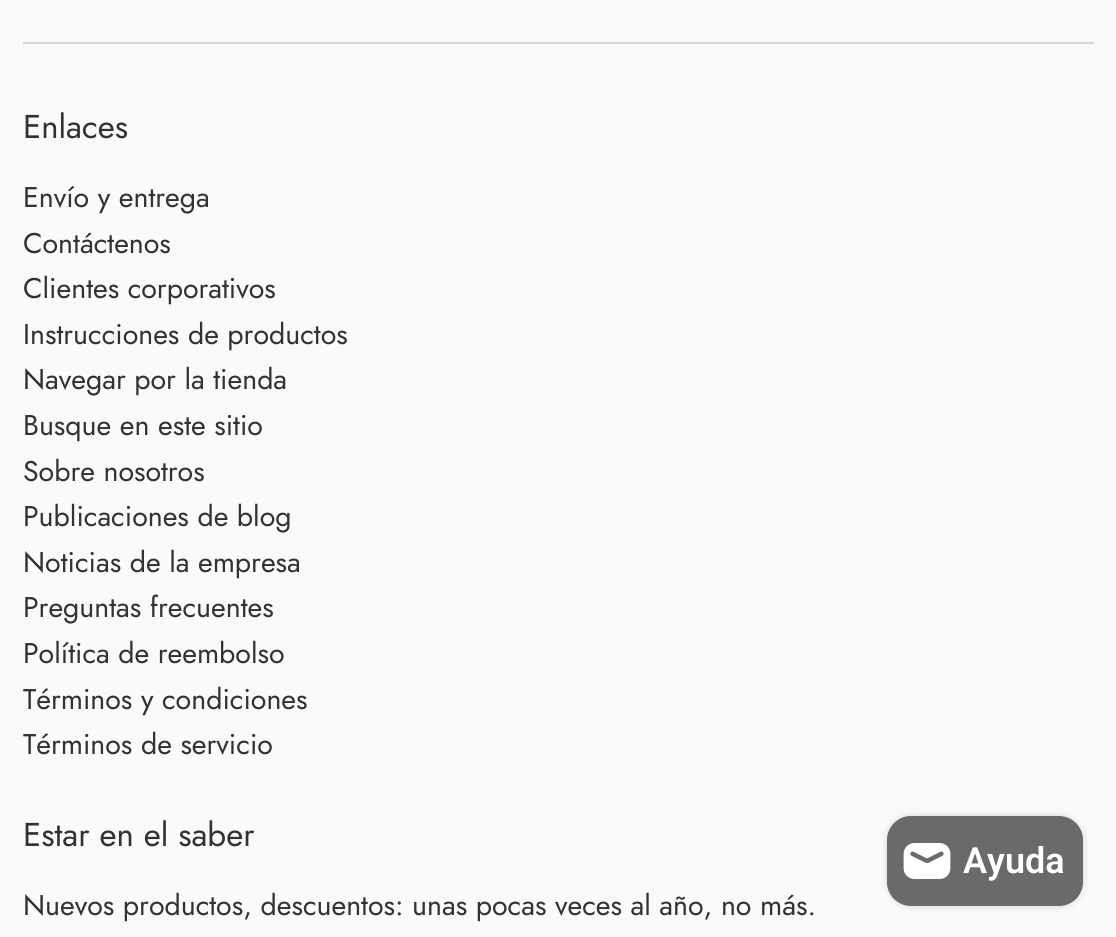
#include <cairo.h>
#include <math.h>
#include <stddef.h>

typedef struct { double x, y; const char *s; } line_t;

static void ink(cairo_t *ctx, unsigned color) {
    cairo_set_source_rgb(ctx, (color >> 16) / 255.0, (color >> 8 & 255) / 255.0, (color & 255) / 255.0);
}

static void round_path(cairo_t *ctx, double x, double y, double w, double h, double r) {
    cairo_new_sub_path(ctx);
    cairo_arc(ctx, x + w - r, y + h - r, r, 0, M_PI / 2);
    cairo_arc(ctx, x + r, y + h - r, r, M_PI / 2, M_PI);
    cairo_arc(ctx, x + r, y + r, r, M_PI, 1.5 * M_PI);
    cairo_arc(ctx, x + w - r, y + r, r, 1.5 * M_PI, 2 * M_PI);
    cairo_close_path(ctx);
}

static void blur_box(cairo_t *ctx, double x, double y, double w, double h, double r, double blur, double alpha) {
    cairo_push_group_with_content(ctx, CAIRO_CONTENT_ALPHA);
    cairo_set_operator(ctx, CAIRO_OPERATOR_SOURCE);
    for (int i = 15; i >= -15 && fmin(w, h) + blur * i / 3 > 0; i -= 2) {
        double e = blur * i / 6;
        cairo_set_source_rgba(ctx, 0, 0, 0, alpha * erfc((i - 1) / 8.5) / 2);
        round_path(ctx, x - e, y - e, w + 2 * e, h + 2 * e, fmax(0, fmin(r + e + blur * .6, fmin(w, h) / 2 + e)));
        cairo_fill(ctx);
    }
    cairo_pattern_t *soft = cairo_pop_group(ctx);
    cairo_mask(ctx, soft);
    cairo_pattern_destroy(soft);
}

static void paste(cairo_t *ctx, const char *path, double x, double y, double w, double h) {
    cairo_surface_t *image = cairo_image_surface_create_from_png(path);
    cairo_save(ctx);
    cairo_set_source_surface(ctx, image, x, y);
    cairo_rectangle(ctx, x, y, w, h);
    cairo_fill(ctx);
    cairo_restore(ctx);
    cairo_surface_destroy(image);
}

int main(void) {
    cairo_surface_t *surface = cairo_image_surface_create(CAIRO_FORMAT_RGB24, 1116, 937);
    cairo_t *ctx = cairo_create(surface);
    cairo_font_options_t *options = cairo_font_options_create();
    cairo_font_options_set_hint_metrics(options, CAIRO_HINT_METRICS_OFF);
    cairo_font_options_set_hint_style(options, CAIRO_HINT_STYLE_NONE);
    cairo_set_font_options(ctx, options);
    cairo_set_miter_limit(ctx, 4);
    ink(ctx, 0xFAFAFA);
    cairo_paint(ctx);
    ink(ctx, 0xD7D8D2);
    cairo_rectangle(ctx, 23, 42, 1071, 2);
    cairo_fill(ctx);
    cairo_select_font_face(ctx, "Jost", CAIRO_FONT_SLANT_NORMAL, CAIRO_FONT_WEIGHT_NORMAL);
    cairo_set_font_size(ctx, 33);
    ink(ctx, 0x323232);
    cairo_move_to(ctx, 23, 138);
    cairo_show_text(ctx, "Enlaces");
    cairo_set_font_size(ctx, 28.5);
    {
        static const line_t items[] = {
            {23, 207, "Envío y entrega"},
            {23, 253, "Contáctenos"},
            {23, 298, "Clientes corporativos"},
            {23, 344, "Instrucciones de productos"},
            {23, 389, "Navegar por la tienda"},
            {23, 435, "Busque en este sitio"},
            {23, 481, "Sobre nosotros"},
            {23, 526, "Publicaciones de blog"},
            {23, 572, "Noticias de la empresa"},
            {23, 617, "Preguntas frecuentes"},
            {23, 663, "Política de reembolso"},
            {23, 709, "Términos y condiciones"},
            {23, 754, "Términos de servicio"},
        };
        for (size_t i = 0; i < sizeof items / sizeof *items; i++) {
            cairo_move_to(ctx, items[i].x, items[i].y);
            cairo_show_text(ctx, items[i].s);
        }
    }
    cairo_set_font_size(ctx, 33);
    cairo_move_to(ctx, 23, 846);
    cairo_show_text(ctx, "Estar en el saber");
    cairo_set_font_size(ctx, 28.5);
    cairo_move_to(ctx, 23, 915);
    cairo_show_text(ctx, "Nuevos productos, descuentos: unas pocas veces al año, no más.");
    ink(ctx, 0x000000);
    blur_box(ctx, 887, 816, 196, 90, 24, 4, 0.15);
    ink(ctx, 0x6A6A6A);
    round_path(ctx, 887, 816, 196, 90, 24);
    cairo_fill(ctx);
    paste(ctx, "media/1.png", 903, 843, 48, 36);
    cairo_select_font_face(ctx, "Roboto SemiBold", CAIRO_FONT_SLANT_NORMAL, CAIRO_FONT_WEIGHT_NORMAL);
    cairo_set_font_size(ctx, 36);
    ink(ctx, 0xFFFFFF);
    cairo_move_to(ctx, 963, 873);
    cairo_show_text(ctx, "Ayuda");
    cairo_surface_write_to_png(surface, "image.png");
    cairo_font_options_destroy(options);
    cairo_destroy(ctx);
    cairo_surface_destroy(surface);
    return 0;
}
